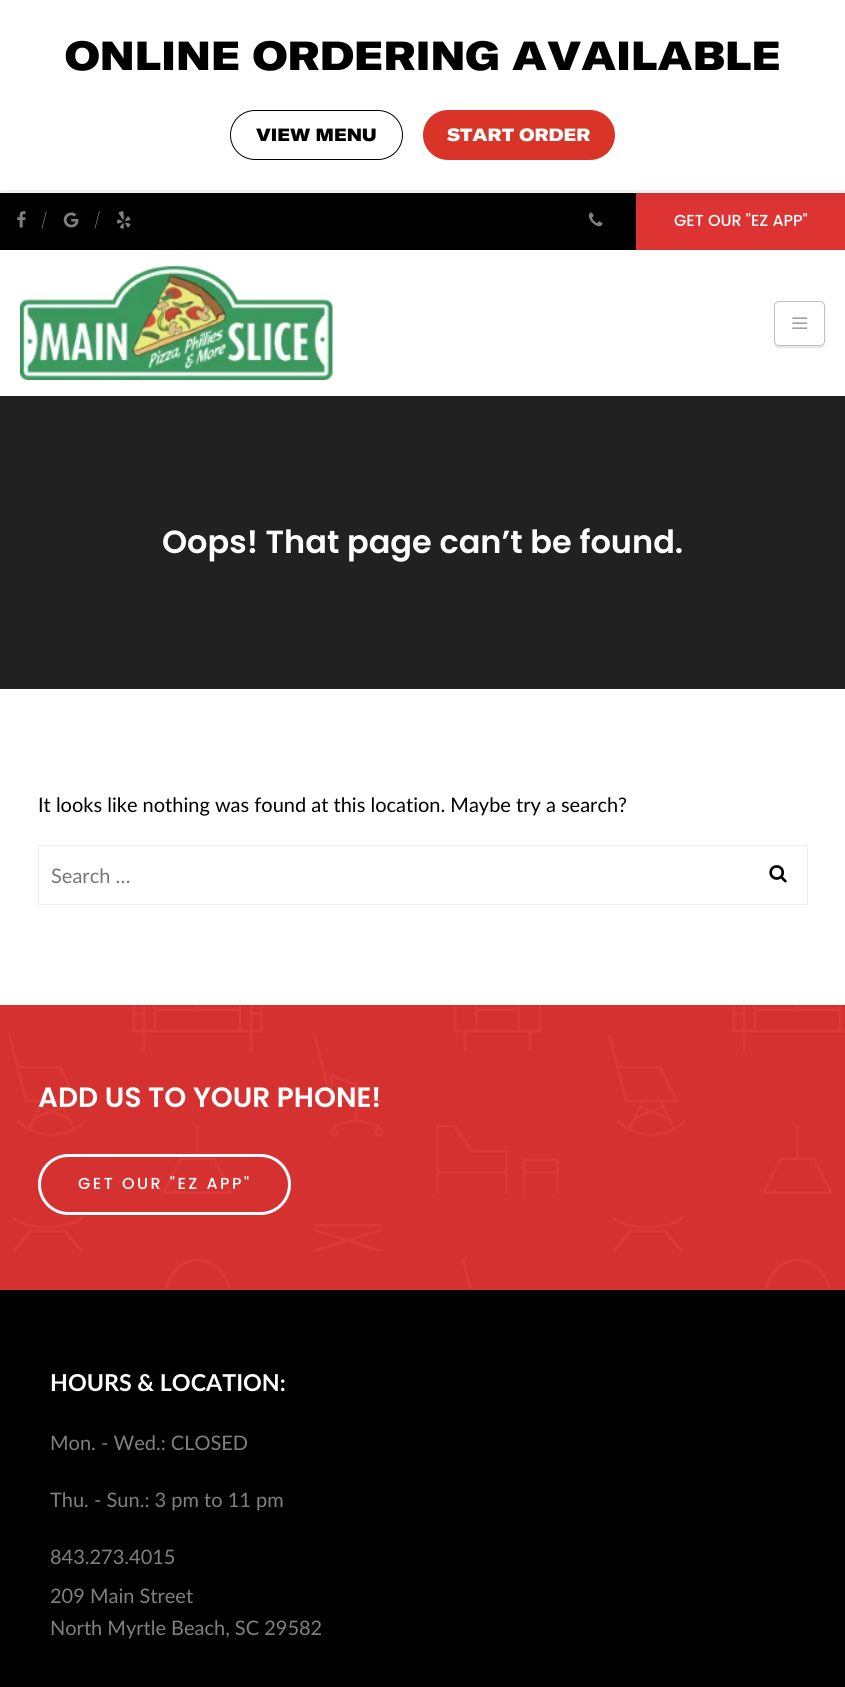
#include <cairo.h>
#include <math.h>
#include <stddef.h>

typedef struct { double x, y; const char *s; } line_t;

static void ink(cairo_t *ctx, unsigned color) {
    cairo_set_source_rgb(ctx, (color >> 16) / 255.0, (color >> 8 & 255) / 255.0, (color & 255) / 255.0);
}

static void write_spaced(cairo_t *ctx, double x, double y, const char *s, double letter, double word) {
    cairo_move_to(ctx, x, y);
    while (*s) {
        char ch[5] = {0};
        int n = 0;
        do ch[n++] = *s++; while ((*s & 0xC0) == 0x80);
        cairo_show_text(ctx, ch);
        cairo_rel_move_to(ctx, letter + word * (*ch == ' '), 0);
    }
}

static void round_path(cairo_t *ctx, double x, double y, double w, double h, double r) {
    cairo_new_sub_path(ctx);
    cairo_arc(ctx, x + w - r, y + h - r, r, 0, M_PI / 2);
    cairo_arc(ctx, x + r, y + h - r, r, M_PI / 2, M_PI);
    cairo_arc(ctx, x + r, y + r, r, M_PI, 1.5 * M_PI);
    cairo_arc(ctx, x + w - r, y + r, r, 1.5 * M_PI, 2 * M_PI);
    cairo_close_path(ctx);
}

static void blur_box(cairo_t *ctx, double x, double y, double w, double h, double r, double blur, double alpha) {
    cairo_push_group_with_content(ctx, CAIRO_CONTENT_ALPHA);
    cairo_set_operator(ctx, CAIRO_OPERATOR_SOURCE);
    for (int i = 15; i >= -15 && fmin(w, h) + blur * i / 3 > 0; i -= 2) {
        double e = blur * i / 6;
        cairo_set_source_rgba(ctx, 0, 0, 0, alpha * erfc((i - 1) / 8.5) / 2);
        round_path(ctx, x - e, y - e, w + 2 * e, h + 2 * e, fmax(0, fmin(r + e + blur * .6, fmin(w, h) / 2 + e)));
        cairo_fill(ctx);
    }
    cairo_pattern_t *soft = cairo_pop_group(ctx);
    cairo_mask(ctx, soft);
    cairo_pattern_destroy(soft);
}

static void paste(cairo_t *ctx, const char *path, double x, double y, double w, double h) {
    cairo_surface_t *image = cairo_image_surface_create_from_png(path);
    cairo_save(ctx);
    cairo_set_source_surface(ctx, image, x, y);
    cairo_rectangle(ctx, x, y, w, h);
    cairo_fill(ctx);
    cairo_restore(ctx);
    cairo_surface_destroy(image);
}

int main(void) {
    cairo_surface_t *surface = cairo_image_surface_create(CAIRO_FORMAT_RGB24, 845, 1687);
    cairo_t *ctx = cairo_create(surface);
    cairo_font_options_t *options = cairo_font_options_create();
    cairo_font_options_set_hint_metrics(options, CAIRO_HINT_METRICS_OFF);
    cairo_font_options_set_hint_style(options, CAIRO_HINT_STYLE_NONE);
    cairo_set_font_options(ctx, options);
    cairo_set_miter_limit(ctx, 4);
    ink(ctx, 0xFFFFFF);
    cairo_paint(ctx);
    ink(ctx, 0x000000);
    cairo_rectangle(ctx, 0, 193, 636, 57);
    cairo_fill(ctx);
    paste(ctx, "media/1.png", 17, 211, 9, 17);
    paste(ctx, "media/2.png", 63, 212, 16, 16);
    paste(ctx, "media/3.png", 117, 211, 14, 18);
    paste(ctx, "media/4.png", 588, 212, 15, 15);
    ink(ctx, 0xDD3333);
    cairo_rectangle(ctx, 636, 193, 209, 57);
    cairo_fill(ctx);
    cairo_save(ctx);
    cairo_rectangle(ctx, 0, 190, 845, 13);
    cairo_clip(ctx);
    ink(ctx, 0x211E1E);
    blur_box(ctx, 0, 5, 845, 190, 0, 10, 0.1);
    cairo_restore(ctx);
    cairo_select_font_face(ctx, "GT America Black", CAIRO_FONT_SLANT_NORMAL, CAIRO_FONT_WEIGHT_NORMAL);
    cairo_set_font_size(ctx, 40);
    ink(ctx, 0x000000);
    write_spaced(ctx, 65, 70, "ONLINE ORDERING AVAILABLE", 0.2, 0);
    round_path(ctx, 230.5, 110.5, 172, 49, 24.5);
    cairo_set_line_width(ctx, 1);
    cairo_stroke(ctx);
    cairo_set_font_size(ctx, 17.5);
    cairo_move_to(ctx, 256, 141);
    cairo_show_text(ctx, "VIEW MENU");
    ink(ctx, 0xDA3327);
    round_path(ctx, 423, 110, 192, 50, 25);
    cairo_fill(ctx);
    ink(ctx, 0xFFFFFF);
    cairo_move_to(ctx, 447, 141);
    cairo_show_text(ctx, "START ORDER");
    cairo_select_font_face(ctx, "Poppins ExtraLight", CAIRO_FONT_SLANT_NORMAL, CAIRO_FONT_WEIGHT_NORMAL);
    cairo_set_font_size(ctx, 16);
    ink(ctx, 0x808080);
    cairo_move_to(ctx, 41, 226);
    cairo_show_text(ctx, "/");
    cairo_move_to(ctx, 94, 226);
    cairo_show_text(ctx, "/");
    cairo_select_font_face(ctx, "Poppins Medium", CAIRO_FONT_SLANT_NORMAL, CAIRO_FONT_WEIGHT_NORMAL);
    ink(ctx, 0xFFFFFF);
    cairo_move_to(ctx, 674, 226);
    cairo_show_text(ctx, "GET OUR \"EZ APP\"");
    paste(ctx, "media/5.png", 20, 266, 313, 114);
    cairo_save(ctx);
    cairo_set_fill_rule(ctx, CAIRO_FILL_RULE_EVEN_ODD);
    cairo_new_path(ctx);
    cairo_move_to(ctx, 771, 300);
    cairo_line_to(ctx, 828, 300);
    cairo_line_to(ctx, 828, 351);
    cairo_line_to(ctx, 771, 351);
    cairo_close_path(ctx);
    cairo_move_to(ctx, 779, 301);
    cairo_line_to(ctx, 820, 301);
    cairo_curve_to(ctx, 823, 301, 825, 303, 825, 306);
    cairo_line_to(ctx, 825, 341);
    cairo_curve_to(ctx, 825, 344, 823, 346, 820, 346);
    cairo_line_to(ctx, 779, 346);
    cairo_curve_to(ctx, 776, 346, 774, 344, 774, 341);
    cairo_line_to(ctx, 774, 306);
    cairo_curve_to(ctx, 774, 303, 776, 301, 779, 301);
    cairo_close_path(ctx);
    cairo_clip(ctx);
    ink(ctx, 0x000000);
    blur_box(ctx, 774, 303, 51, 45, 5, 0.5, 0.1);
    cairo_restore(ctx);
    round_path(ctx, 774.5, 301.5, 50, 44, 4.5);
    ink(ctx, 0xC1C1C1);
    cairo_stroke(ctx);
    paste(ctx, "media/6.png", 792, 317, 16, 12);
    ink(ctx, 0x212121);
    cairo_rectangle(ctx, 0, 396, 845, 293);
    cairo_fill(ctx);
    cairo_select_font_face(ctx, "Poppins SemiBold", CAIRO_FONT_SLANT_NORMAL, CAIRO_FONT_WEIGHT_NORMAL);
    cairo_set_font_size(ctx, 32);
    ink(ctx, 0xFFFFFF);
    cairo_move_to(ctx, 162, 553);
    cairo_show_text(ctx, "Oops! That page can’t be found.");
    cairo_select_font_face(ctx, "Lato", CAIRO_FONT_SLANT_NORMAL, CAIRO_FONT_WEIGHT_NORMAL);
    cairo_set_font_size(ctx, 20);
    ink(ctx, 0x000000);
    cairo_move_to(ctx, 38, 812);
    cairo_show_text(ctx, "It looks like nothing was found at this location. Maybe try a search?");
    cairo_rectangle(ctx, 38.5, 845.5, 769, 59);
    ink(ctx, 0xEEEEEE);
    cairo_stroke(ctx);
    ink(ctx, 0x757575);
    cairo_move_to(ctx, 51, 883);
    cairo_show_text(ctx, "Search …");
    paste(ctx, "media/7.png", 769, 865, 18, 18);
    ink(ctx, 0xDD3333);
    cairo_rectangle(ctx, 0, 1005, 845, 285);
    cairo_fill(ctx);
    paste(ctx, "media/8.png", 0, 1005, 845, 285);
    cairo_select_font_face(ctx, "Poppins SemiBold", CAIRO_FONT_SLANT_NORMAL, CAIRO_FONT_WEIGHT_NORMAL);
    cairo_set_font_size(ctx, 28);
    ink(ctx, 0xFFFFFF);
    cairo_move_to(ctx, 38, 1107);
    cairo_show_text(ctx, "ADD US TO YOUR PHONE!");
    round_path(ctx, 39.5, 1155.5, 250, 58, 29);
    cairo_set_line_width(ctx, 3);
    cairo_stroke(ctx);
    cairo_select_font_face(ctx, "Poppins Medium", CAIRO_FONT_SLANT_NORMAL, CAIRO_FONT_WEIGHT_NORMAL);
    cairo_set_font_size(ctx, 16);
    write_spaced(ctx, 78, 1189, "GET OUR \"EZ APP\"", 2.5, 0);
    ink(ctx, 0x000000);
    cairo_rectangle(ctx, 0, 1290, 845, 397);
    cairo_fill(ctx);
    cairo_select_font_face(ctx, "Lato", CAIRO_FONT_SLANT_NORMAL, CAIRO_FONT_WEIGHT_BOLD);
    cairo_set_font_size(ctx, 23.25);
    ink(ctx, 0xFFFFFF);
    cairo_move_to(ctx, 50, 1391);
    cairo_show_text(ctx, "HOURS & LOCATION:");
    cairo_select_font_face(ctx, "Lato", CAIRO_FONT_SLANT_NORMAL, CAIRO_FONT_WEIGHT_NORMAL);
    cairo_set_font_size(ctx, 20);
    ink(ctx, 0x808080);
    {
        static const line_t items[] = {
            {50, 1450, "Mon. - Wed.: CLOSED"},
            {50, 1507, "Thu. - Sun.: 3 pm to 11 pm"},
            {50, 1564, "843.273.4015"},
            {50, 1603, "209 Main Street"},
            {50, 1635, "North Myrtle Beach, SC 29582"},
        };
        for (size_t i = 0; i < sizeof items / sizeof *items; i++) {
            cairo_move_to(ctx, items[i].x, items[i].y);
            cairo_show_text(ctx, items[i].s);
        }
    }
    cairo_surface_write_to_png(surface, "image.png");
    cairo_font_options_destroy(options);
    cairo_destroy(ctx);
    cairo_surface_destroy(surface);
    return 0;
}
